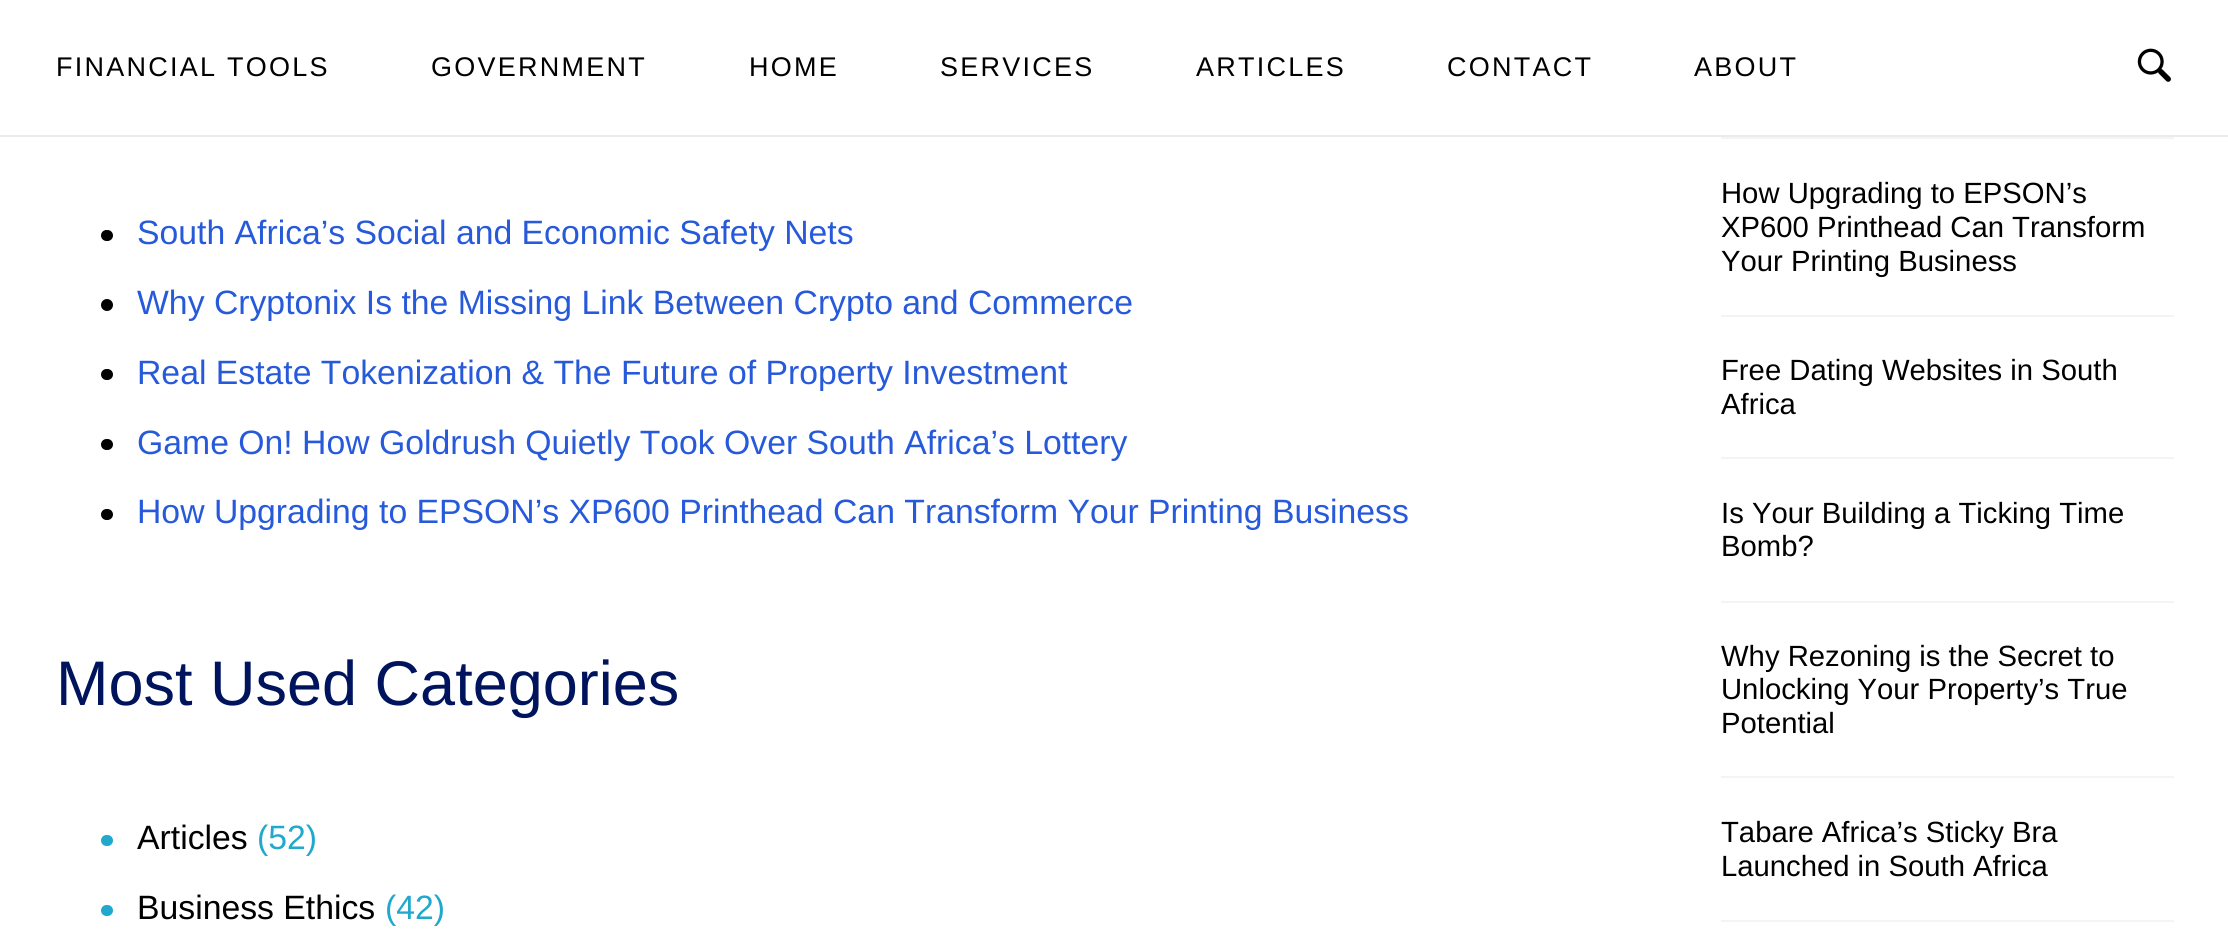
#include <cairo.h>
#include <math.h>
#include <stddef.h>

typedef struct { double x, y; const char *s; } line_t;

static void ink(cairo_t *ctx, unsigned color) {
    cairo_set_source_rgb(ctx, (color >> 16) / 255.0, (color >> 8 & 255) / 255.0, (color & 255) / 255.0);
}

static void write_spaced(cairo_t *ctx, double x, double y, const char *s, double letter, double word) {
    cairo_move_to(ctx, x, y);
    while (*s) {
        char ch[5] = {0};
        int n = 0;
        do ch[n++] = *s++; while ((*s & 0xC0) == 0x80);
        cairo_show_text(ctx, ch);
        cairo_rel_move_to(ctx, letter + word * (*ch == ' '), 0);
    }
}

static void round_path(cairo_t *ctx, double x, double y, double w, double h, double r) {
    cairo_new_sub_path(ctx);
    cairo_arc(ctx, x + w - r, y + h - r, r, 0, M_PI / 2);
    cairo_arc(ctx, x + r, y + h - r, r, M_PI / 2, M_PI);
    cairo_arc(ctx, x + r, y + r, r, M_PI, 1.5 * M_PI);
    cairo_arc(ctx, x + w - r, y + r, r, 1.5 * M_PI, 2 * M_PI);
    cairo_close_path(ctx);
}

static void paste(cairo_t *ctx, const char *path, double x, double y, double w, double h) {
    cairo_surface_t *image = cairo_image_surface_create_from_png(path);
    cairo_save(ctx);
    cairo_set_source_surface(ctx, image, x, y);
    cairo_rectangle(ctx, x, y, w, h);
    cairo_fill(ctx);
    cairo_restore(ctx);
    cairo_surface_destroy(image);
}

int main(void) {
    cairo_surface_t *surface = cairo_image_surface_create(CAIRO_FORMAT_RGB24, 2228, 940);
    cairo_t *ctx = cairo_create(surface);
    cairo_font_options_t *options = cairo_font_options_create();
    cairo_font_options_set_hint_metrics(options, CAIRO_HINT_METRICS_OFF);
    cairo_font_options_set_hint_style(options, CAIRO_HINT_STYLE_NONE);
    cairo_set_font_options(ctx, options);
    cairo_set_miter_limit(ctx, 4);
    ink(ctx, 0xFFFFFF);
    cairo_paint(ctx);
    ink(ctx, 0xEBEBEB);
    cairo_rectangle(ctx, 0, 135, 2228, 2);
    cairo_fill(ctx);
    cairo_select_font_face(ctx, "Liberation Sans", CAIRO_FONT_SLANT_NORMAL, CAIRO_FONT_WEIGHT_NORMAL);
    cairo_set_font_size(ctx, 27);
    ink(ctx, 0x000000);
    {
        static const line_t items[] = {
            {56, 76, "FINANCIAL TOOLS"},
            {431, 76, "GOVERNMENT"},
            {749, 76, "HOME"},
            {940, 76, "SERVICES"},
            {1196, 76, "ARTICLES"},
            {1447, 76, "CONTACT"},
            {1694, 76, "ABOUT"},
        };
        for (size_t i = 0; i < sizeof items / sizeof *items; i++) {
            write_spaced(ctx, items[i].x, items[i].y, items[i].s, 2.25, 0);
        }
    }
    paste(ctx, "media/1.png", 2137, 48, 34, 34);
    round_path(ctx, 101, 230, 12, 11, 5.5);
    cairo_fill(ctx);
    cairo_set_font_size(ctx, 33.75);
    ink(ctx, 0x275ADB);
    cairo_move_to(ctx, 137, 244);
    cairo_show_text(ctx, "South Africa’s Social and Economic Safety Nets");
    ink(ctx, 0x000000);
    cairo_new_path(ctx);
    cairo_arc(ctx, 107, 305, 6, 0, 2 * M_PI);
    cairo_fill(ctx);
    ink(ctx, 0x275ADB);
    cairo_move_to(ctx, 137, 314);
    cairo_show_text(ctx, "Why Cryptonix Is the Missing Link Between Crypto and Commerce");
    ink(ctx, 0x000000);
    round_path(ctx, 101, 369, 12, 11, 5.5);
    cairo_fill(ctx);
    ink(ctx, 0x275ADB);
    cairo_move_to(ctx, 137, 384);
    cairo_show_text(ctx, "Real Estate Tokenization & The Future of Property Investment");
    ink(ctx, 0x000000);
    round_path(ctx, 101, 439, 12, 11, 5.5);
    cairo_fill(ctx);
    ink(ctx, 0x275ADB);
    cairo_move_to(ctx, 137, 454);
    cairo_show_text(ctx, "Game On! How Goldrush Quietly Took Over South Africa’s Lottery");
    ink(ctx, 0x000000);
    round_path(ctx, 101, 509, 12, 11, 5.5);
    cairo_fill(ctx);
    ink(ctx, 0x275ADB);
    cairo_move_to(ctx, 137, 523);
    cairo_show_text(ctx, "How Upgrading to EPSON’s XP600 Printhead Can Transform Your Printing Business");
    cairo_set_font_size(ctx, 63);
    ink(ctx, 0x00145E);
    cairo_move_to(ctx, 56, 705);
    cairo_show_text(ctx, "Most Used Categories");
    ink(ctx, 0x20A9CC);
    round_path(ctx, 101, 835, 12, 11, 5.5);
    cairo_fill(ctx);
    cairo_set_font_size(ctx, 33.75);
    ink(ctx, 0x000000);
    cairo_move_to(ctx, 137, 849);
    cairo_show_text(ctx, "Articles");
    ink(ctx, 0x20A9CC);
    cairo_move_to(ctx, 257, 849);
    cairo_show_text(ctx, "(52)");
    round_path(ctx, 101, 905, 12, 11, 5.5);
    cairo_fill(ctx);
    ink(ctx, 0x000000);
    cairo_move_to(ctx, 137, 919);
    cairo_show_text(ctx, "Business Ethics");
    ink(ctx, 0x20A9CC);
    cairo_move_to(ctx, 385, 919);
    cairo_show_text(ctx, "(42)");
    ink(ctx, 0xF4F4F4);
    cairo_rectangle(ctx, 1721, 137, 453, 2);
    cairo_fill(ctx);
    cairo_rectangle(ctx, 1721, 315, 453, 2);
    cairo_fill(ctx);
    cairo_set_font_size(ctx, 29.25);
    ink(ctx, 0x000000);
    {
        static const line_t items[] = {
            {1721, 203, "How Upgrading to EPSON’s"},
            {1721, 237, "XP600 Printhead Can Transform"},
            {1721, 271, "Your Printing Business"},
        };
        for (size_t i = 0; i < sizeof items / sizeof *items; i++) {
            cairo_move_to(ctx, items[i].x, items[i].y);
            cairo_show_text(ctx, items[i].s);
        }
    }
    ink(ctx, 0xF4F4F4);
    cairo_rectangle(ctx, 1721, 457, 453, 2);
    cairo_fill(ctx);
    ink(ctx, 0x000000);
    cairo_move_to(ctx, 1721, 380);
    cairo_show_text(ctx, "Free Dating Websites in South");
    cairo_move_to(ctx, 1721, 414);
    cairo_show_text(ctx, "Africa");
    ink(ctx, 0xF4F4F4);
    cairo_rectangle(ctx, 1721, 601, 453, 2);
    cairo_fill(ctx);
    ink(ctx, 0x000000);
    cairo_move_to(ctx, 1721, 523);
    cairo_show_text(ctx, "Is Your Building a Ticking Time");
    cairo_move_to(ctx, 1721, 556);
    cairo_show_text(ctx, "Bomb?");
    ink(ctx, 0xF4F4F4);
    cairo_rectangle(ctx, 1721, 776, 453, 2);
    cairo_fill(ctx);
    ink(ctx, 0x000000);
    {
        static const line_t items[] = {
            {1721, 666, "Why Rezoning is the Secret to"},
            {1721, 699, "Unlocking Your Property’s True"},
            {1721, 733, "Potential"},
        };
        for (size_t i = 0; i < sizeof items / sizeof *items; i++) {
            cairo_move_to(ctx, items[i].x, items[i].y);
            cairo_show_text(ctx, items[i].s);
        }
    }
    ink(ctx, 0xF4F4F4);
    cairo_rectangle(ctx, 1721, 920, 453, 2);
    cairo_fill(ctx);
    ink(ctx, 0x000000);
    cairo_move_to(ctx, 1721, 842);
    cairo_show_text(ctx, "Tabare Africa’s Sticky Bra");
    cairo_move_to(ctx, 1721, 876);
    cairo_show_text(ctx, "Launched in South Africa");
    cairo_surface_write_to_png(surface, "image.png");
    cairo_font_options_destroy(options);
    cairo_destroy(ctx);
    cairo_surface_destroy(surface);
    return 0;
}
